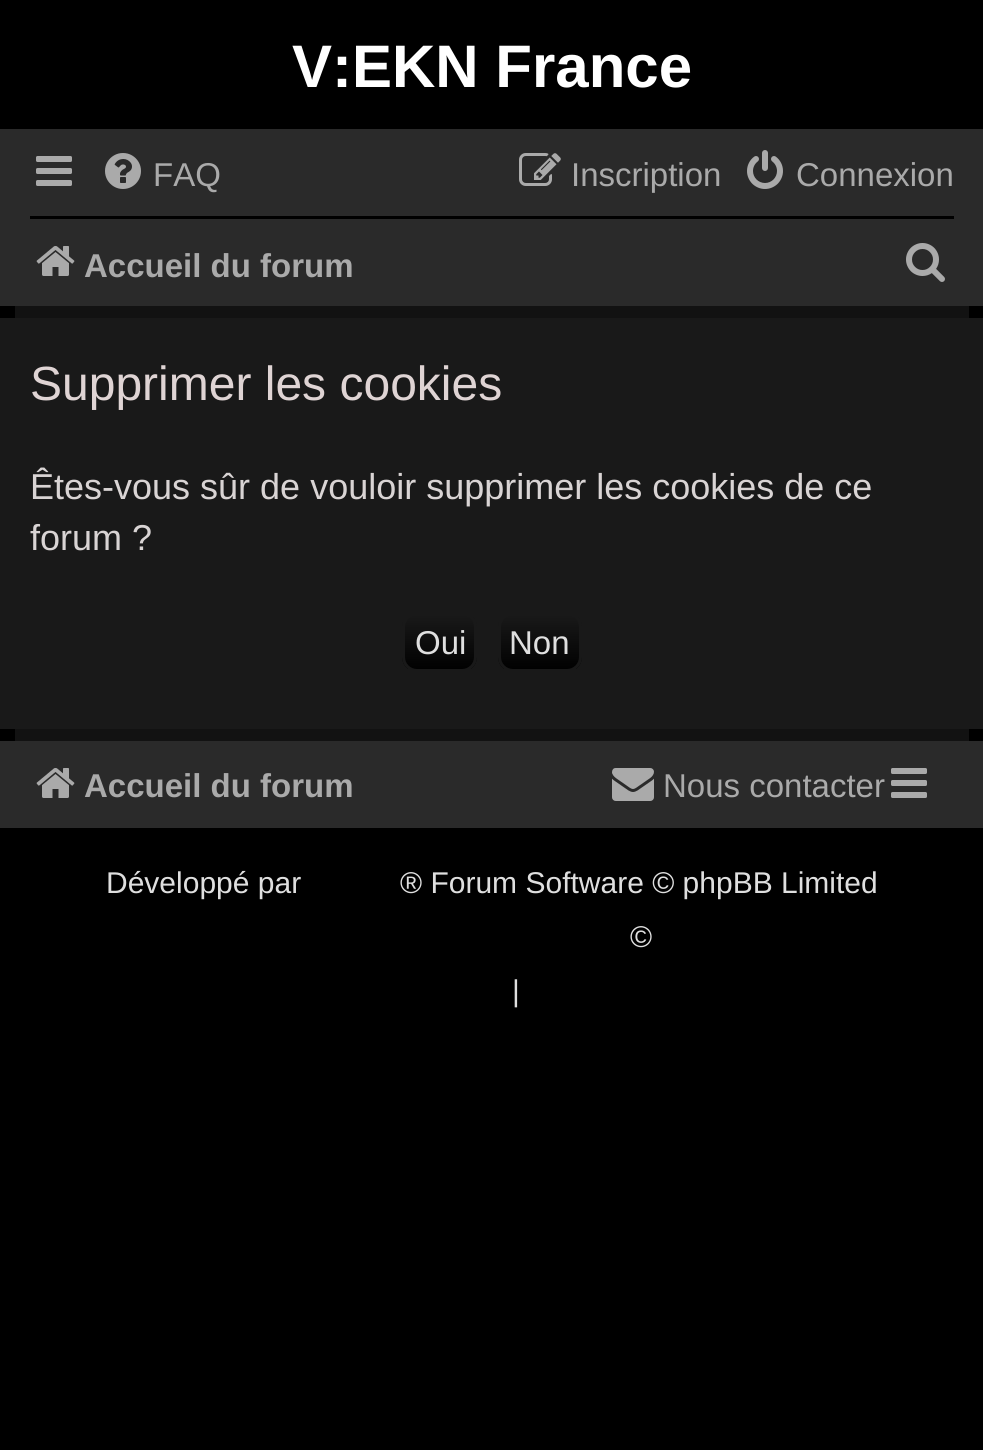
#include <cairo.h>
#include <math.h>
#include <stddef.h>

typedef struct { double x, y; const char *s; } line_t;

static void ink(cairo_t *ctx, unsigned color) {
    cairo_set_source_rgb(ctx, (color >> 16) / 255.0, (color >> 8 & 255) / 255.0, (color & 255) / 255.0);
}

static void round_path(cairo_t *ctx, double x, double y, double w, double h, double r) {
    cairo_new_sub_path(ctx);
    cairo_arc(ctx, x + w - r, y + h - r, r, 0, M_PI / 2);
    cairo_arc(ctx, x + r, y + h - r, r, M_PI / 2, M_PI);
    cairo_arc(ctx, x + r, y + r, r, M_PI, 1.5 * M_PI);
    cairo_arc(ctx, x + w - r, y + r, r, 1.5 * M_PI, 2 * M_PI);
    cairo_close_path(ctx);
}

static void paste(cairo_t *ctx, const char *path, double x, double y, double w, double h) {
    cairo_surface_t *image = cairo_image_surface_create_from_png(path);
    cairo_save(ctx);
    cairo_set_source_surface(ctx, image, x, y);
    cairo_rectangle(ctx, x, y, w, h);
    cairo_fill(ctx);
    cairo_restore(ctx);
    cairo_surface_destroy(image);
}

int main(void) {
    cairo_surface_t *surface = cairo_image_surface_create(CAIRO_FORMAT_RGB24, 983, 1450);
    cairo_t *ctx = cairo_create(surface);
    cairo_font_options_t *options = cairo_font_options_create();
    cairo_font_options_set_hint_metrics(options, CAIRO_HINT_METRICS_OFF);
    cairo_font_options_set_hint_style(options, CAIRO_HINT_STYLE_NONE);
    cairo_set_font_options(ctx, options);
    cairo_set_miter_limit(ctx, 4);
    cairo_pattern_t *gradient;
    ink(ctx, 0x000000);
    cairo_paint(ctx);
    ink(ctx, 0x121212);
    cairo_rectangle(ctx, 15, 306, 954, 435);
    cairo_fill(ctx);
    cairo_select_font_face(ctx, "Liberation Sans", CAIRO_FONT_SLANT_NORMAL, CAIRO_FONT_WEIGHT_BOLD);
    cairo_set_font_size(ctx, 60);
    ink(ctx, 0xFFFFFF);
    cairo_move_to(ctx, 292, 87);
    cairo_show_text(ctx, "V:EKN France");
    ink(ctx, 0x2A2A2A);
    cairo_rectangle(ctx, 0, 129, 983, 177);
    cairo_fill(ctx);
    paste(ctx, "media/1.png", 36, 156, 36, 30);
    paste(ctx, "media/2.png", 105, 153, 36, 36);
    cairo_select_font_face(ctx, "Liberation Sans", CAIRO_FONT_SLANT_NORMAL, CAIRO_FONT_WEIGHT_NORMAL);
    cairo_set_font_size(ctx, 33);
    ink(ctx, 0xAAAAAA);
    cairo_move_to(ctx, 153, 186);
    cairo_show_text(ctx, "FAQ");
    paste(ctx, "media/3.png", 519, 153, 42, 33);
    cairo_move_to(ctx, 571, 186);
    cairo_show_text(ctx, "Inscription");
    paste(ctx, "media/4.png", 747, 150, 36, 39);
    cairo_move_to(ctx, 796, 186);
    cairo_show_text(ctx, "Connexion");
    ink(ctx, 0x000000);
    cairo_rectangle(ctx, 30, 216, 924, 3);
    cairo_fill(ctx);
    paste(ctx, "media/5.png", 36, 246, 39, 30);
    cairo_select_font_face(ctx, "Liberation Sans", CAIRO_FONT_SLANT_NORMAL, CAIRO_FONT_WEIGHT_BOLD);
    ink(ctx, 0xAAAAAA);
    cairo_move_to(ctx, 84, 277);
    cairo_show_text(ctx, "Accueil du forum");
    paste(ctx, "media/6.png", 906, 243, 39, 39);
    ink(ctx, 0x191919);
    cairo_rectangle(ctx, 0, 318, 983, 411);
    cairo_fill(ctx);
    cairo_select_font_face(ctx, "Liberation Sans", CAIRO_FONT_SLANT_NORMAL, CAIRO_FONT_WEIGHT_NORMAL);
    cairo_set_font_size(ctx, 48);
    ink(ctx, 0xDFD4D4);
    cairo_move_to(ctx, 30, 400);
    cairo_show_text(ctx, "Supprimer les cookies");
    cairo_set_font_size(ctx, 36);
    ink(ctx, 0xD9D4D4);
    cairo_move_to(ctx, 30, 499);
    cairo_show_text(ctx, "Êtes-vous sûr de vouloir supprimer les cookies de ce");
    cairo_move_to(ctx, 30, 550);
    cairo_show_text(ctx, "forum ?");
    cairo_save(ctx);
    round_path(ctx, 402, 612, 75, 60, 15);
    cairo_clip(ctx);
    gradient = cairo_pattern_create_linear(440, 615, 440, 669);
    cairo_pattern_add_color_stop_rgba(gradient, 0, 0.098, 0.098, 0.098, 1);
    cairo_pattern_add_color_stop_rgba(gradient, 1, 0.004, 0.004, 0.004, 1);
    cairo_set_source(ctx, gradient);
    cairo_pattern_destroy(gradient);
    cairo_rectangle(ctx, 402, 615, 75, 54);
    cairo_fill(ctx);
    cairo_restore(ctx);
    round_path(ctx, 403.5, 613.5, 72, 57, 13.5);
    ink(ctx, 0x191919);
    cairo_set_line_width(ctx, 3);
    cairo_stroke(ctx);
    cairo_set_font_size(ctx, 33);
    ink(ctx, 0xDFDFDF);
    cairo_move_to(ctx, 415, 654);
    cairo_show_text(ctx, "Oui");
    cairo_save(ctx);
    round_path(ctx, 498, 612, 84, 60, 15);
    cairo_clip(ctx);
    gradient = cairo_pattern_create_linear(540, 615, 540, 669);
    cairo_pattern_add_color_stop_rgba(gradient, 0, 0.098, 0.098, 0.098, 1);
    cairo_pattern_add_color_stop_rgba(gradient, 1, 0.004, 0.004, 0.004, 1);
    cairo_set_source(ctx, gradient);
    cairo_pattern_destroy(gradient);
    cairo_rectangle(ctx, 498, 615, 84, 54);
    cairo_fill(ctx);
    cairo_restore(ctx);
    round_path(ctx, 499.5, 613.5, 81, 57, 13.5);
    ink(ctx, 0x191919);
    cairo_stroke(ctx);
    ink(ctx, 0xDFDFDF);
    cairo_move_to(ctx, 509, 654);
    cairo_show_text(ctx, "Non");
    ink(ctx, 0x2A2A2A);
    cairo_rectangle(ctx, 0, 741, 983, 87);
    cairo_fill(ctx);
    paste(ctx, "media/5.png", 36, 768, 39, 30);
    cairo_select_font_face(ctx, "Liberation Sans", CAIRO_FONT_SLANT_NORMAL, CAIRO_FONT_WEIGHT_BOLD);
    ink(ctx, 0xAAAAAA);
    cairo_move_to(ctx, 84, 797);
    cairo_show_text(ctx, "Accueil du forum");
    paste(ctx, "media/7.png", 612, 768, 42, 33);
    cairo_select_font_face(ctx, "Liberation Sans", CAIRO_FONT_SLANT_NORMAL, CAIRO_FONT_WEIGHT_NORMAL);
    cairo_move_to(ctx, 663, 797);
    cairo_show_text(ctx, "Nous contacter");
    paste(ctx, "media/1.png", 891, 768, 36, 30);
    cairo_set_font_size(ctx, 30);
    ink(ctx, 0xDFDFDF);
    {
        static const line_t items[] = {
            {106, 893, "Développé par"},
            {400, 893, "® Forum Software © phpBB Limited"},
            {630, 947, "©"},
            {512, 1001, "|"},
        };
        for (size_t i = 0; i < sizeof items / sizeof *items; i++) {
            cairo_move_to(ctx, items[i].x, items[i].y);
            cairo_show_text(ctx, items[i].s);
        }
    }
    cairo_surface_write_to_png(surface, "image.png");
    cairo_font_options_destroy(options);
    cairo_destroy(ctx);
    cairo_surface_destroy(surface);
    return 0;
}
